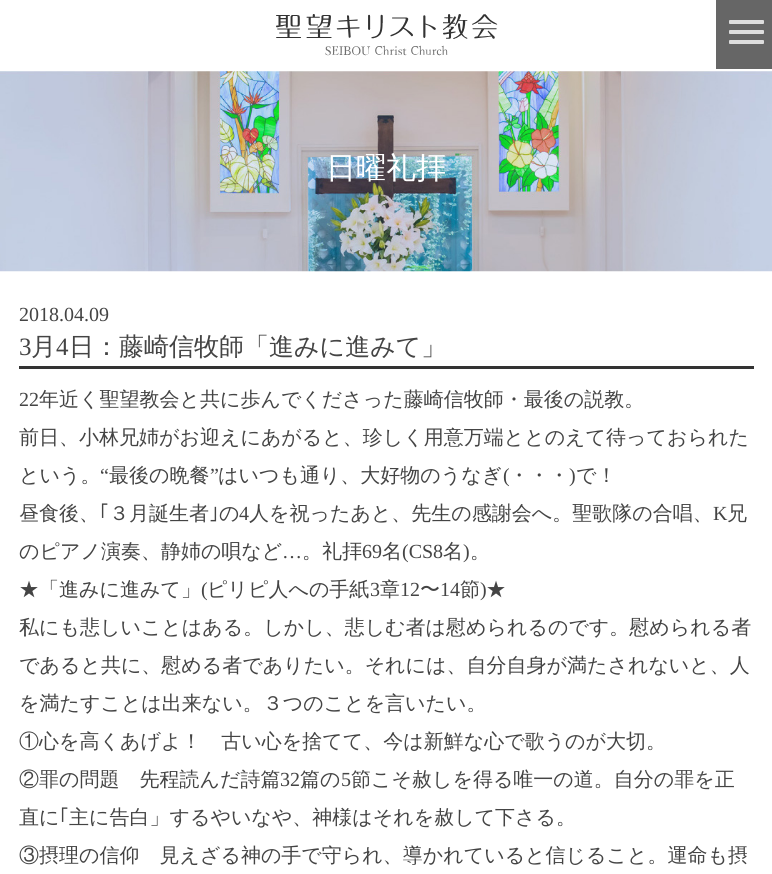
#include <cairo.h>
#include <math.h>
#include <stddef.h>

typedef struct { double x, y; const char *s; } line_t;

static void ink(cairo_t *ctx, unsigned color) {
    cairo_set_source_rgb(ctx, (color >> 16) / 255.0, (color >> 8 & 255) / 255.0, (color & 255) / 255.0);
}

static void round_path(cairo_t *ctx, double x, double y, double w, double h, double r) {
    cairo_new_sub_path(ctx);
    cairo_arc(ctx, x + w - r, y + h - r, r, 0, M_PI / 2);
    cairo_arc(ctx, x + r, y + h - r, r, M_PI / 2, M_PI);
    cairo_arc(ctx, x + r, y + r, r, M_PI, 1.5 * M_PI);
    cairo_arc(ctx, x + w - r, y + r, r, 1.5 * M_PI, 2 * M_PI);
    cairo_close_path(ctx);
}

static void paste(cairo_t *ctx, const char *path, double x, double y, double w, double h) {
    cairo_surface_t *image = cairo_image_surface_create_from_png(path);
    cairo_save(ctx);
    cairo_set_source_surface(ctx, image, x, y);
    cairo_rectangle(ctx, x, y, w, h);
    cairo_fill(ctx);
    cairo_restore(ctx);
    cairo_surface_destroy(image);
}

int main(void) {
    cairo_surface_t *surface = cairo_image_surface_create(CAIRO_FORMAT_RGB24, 772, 874);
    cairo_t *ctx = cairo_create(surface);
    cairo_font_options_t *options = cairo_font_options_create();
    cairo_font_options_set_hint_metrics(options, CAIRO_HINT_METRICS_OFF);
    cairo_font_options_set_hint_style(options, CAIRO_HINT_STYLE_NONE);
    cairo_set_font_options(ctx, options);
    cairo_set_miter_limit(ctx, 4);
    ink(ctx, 0xFFFFFF);
    cairo_paint(ctx);
    paste(ctx, "media/1.png", 276, 14, 222, 42);
    ink(ctx, 0x666666);
    cairo_rectangle(ctx, 716, 0, 56, 69);
    cairo_fill(ctx);
    ink(ctx, 0xDDDDDD);
    round_path(ctx, 729, 20, 35, 4, 1);
    cairo_fill(ctx);
    round_path(ctx, 729, 30, 35, 4, 1);
    cairo_fill(ctx);
    round_path(ctx, 729, 40, 35, 4, 1);
    cairo_fill(ctx);
    paste(ctx, "media/2.png", 0, 71, 772, 201);
    cairo_select_font_face(ctx, "WenQuanYi Zen Hei Medium", CAIRO_FONT_SLANT_NORMAL, CAIRO_FONT_WEIGHT_NORMAL);
    cairo_set_font_size(ctx, 30);
    ink(ctx, 0xFFFFFF);
    cairo_move_to(ctx, 326, 178);
    cairo_show_text(ctx, "日曜礼拝");
    cairo_select_font_face(ctx, "Liberation Serif", CAIRO_FONT_SLANT_NORMAL, CAIRO_FONT_WEIGHT_NORMAL);
    cairo_set_font_size(ctx, 20);
    ink(ctx, 0x444444);
    cairo_move_to(ctx, 19, 321);
    cairo_show_text(ctx, "2018.04.09");
    ink(ctx, 0x333333);
    cairo_rectangle(ctx, 19, 366, 735, 3);
    cairo_fill(ctx);
    cairo_set_font_size(ctx, 25);
    ink(ctx, 0x444444);
    cairo_move_to(ctx, 19, 355);
    cairo_show_text(ctx, "3");
    cairo_select_font_face(ctx, "WenQuanYi Zen Hei Medium", CAIRO_FONT_SLANT_NORMAL, CAIRO_FONT_WEIGHT_NORMAL);
    cairo_move_to(ctx, 31, 355);
    cairo_show_text(ctx, "月");
    cairo_select_font_face(ctx, "Liberation Serif", CAIRO_FONT_SLANT_NORMAL, CAIRO_FONT_WEIGHT_NORMAL);
    cairo_move_to(ctx, 56, 355);
    cairo_show_text(ctx, "4");
    cairo_select_font_face(ctx, "WenQuanYi Zen Hei Medium", CAIRO_FONT_SLANT_NORMAL, CAIRO_FONT_WEIGHT_NORMAL);
    cairo_move_to(ctx, 69, 355);
    cairo_show_text(ctx, "日：藤崎信牧師「進みに進みて」");
    cairo_select_font_face(ctx, "Liberation Serif", CAIRO_FONT_SLANT_NORMAL, CAIRO_FONT_WEIGHT_NORMAL);
    cairo_set_font_size(ctx, 20);
    cairo_move_to(ctx, 19, 406);
    cairo_show_text(ctx, "22");
    cairo_select_font_face(ctx, "WenQuanYi Zen Hei Medium", CAIRO_FONT_SLANT_NORMAL, CAIRO_FONT_WEIGHT_NORMAL);
    {
        static const line_t items[] = {
            {39, 406, "年近く聖望教会と共に歩んでくださった藤崎信牧師・最後の説教。"},
            {19, 444, "前日、小林兄姉がお迎えにあがると、珍しく用意万端ととのえて待っておられた"},
            {19, 482, "という。"},
        };
        for (size_t i = 0; i < sizeof items / sizeof *items; i++) {
            cairo_move_to(ctx, items[i].x, items[i].y);
            cairo_show_text(ctx, items[i].s);
        }
    }
    cairo_select_font_face(ctx, "Liberation Serif", CAIRO_FONT_SLANT_NORMAL, CAIRO_FONT_WEIGHT_NORMAL);
    cairo_move_to(ctx, 100, 482);
    cairo_show_text(ctx, "“");
    cairo_select_font_face(ctx, "WenQuanYi Zen Hei Medium", CAIRO_FONT_SLANT_NORMAL, CAIRO_FONT_WEIGHT_NORMAL);
    cairo_move_to(ctx, 109, 482);
    cairo_show_text(ctx, "最後の晩餐");
    cairo_select_font_face(ctx, "Liberation Serif", CAIRO_FONT_SLANT_NORMAL, CAIRO_FONT_WEIGHT_NORMAL);
    cairo_move_to(ctx, 210, 482);
    cairo_show_text(ctx, "”");
    cairo_select_font_face(ctx, "WenQuanYi Zen Hei Medium", CAIRO_FONT_SLANT_NORMAL, CAIRO_FONT_WEIGHT_NORMAL);
    cairo_move_to(ctx, 218, 482);
    cairo_show_text(ctx, "はいつも通り、大好物のうなぎ");
    cairo_select_font_face(ctx, "Liberation Serif", CAIRO_FONT_SLANT_NORMAL, CAIRO_FONT_WEIGHT_NORMAL);
    cairo_move_to(ctx, 503, 482);
    cairo_show_text(ctx, "(");
    cairo_select_font_face(ctx, "WenQuanYi Zen Hei Medium", CAIRO_FONT_SLANT_NORMAL, CAIRO_FONT_WEIGHT_NORMAL);
    cairo_move_to(ctx, 509, 482);
    cairo_show_text(ctx, "・・・");
    cairo_select_font_face(ctx, "Liberation Serif", CAIRO_FONT_SLANT_NORMAL, CAIRO_FONT_WEIGHT_NORMAL);
    cairo_move_to(ctx, 569, 482);
    cairo_show_text(ctx, ")");
    cairo_select_font_face(ctx, "WenQuanYi Zen Hei Medium", CAIRO_FONT_SLANT_NORMAL, CAIRO_FONT_WEIGHT_NORMAL);
    cairo_move_to(ctx, 576, 482);
    cairo_show_text(ctx, "で！");
    cairo_move_to(ctx, 19, 520);
    cairo_show_text(ctx, "昼食後、");
    cairo_select_font_face(ctx, "IPAPGothic", CAIRO_FONT_SLANT_NORMAL, CAIRO_FONT_WEIGHT_NORMAL);
    cairo_move_to(ctx, 99, 520);
    cairo_show_text(ctx, "｢");
    cairo_select_font_face(ctx, "WenQuanYi Zen Hei Medium", CAIRO_FONT_SLANT_NORMAL, CAIRO_FONT_WEIGHT_NORMAL);
    cairo_move_to(ctx, 109, 520);
    cairo_show_text(ctx, "３月誕生者");
    cairo_select_font_face(ctx, "IPAPGothic", CAIRO_FONT_SLANT_NORMAL, CAIRO_FONT_WEIGHT_NORMAL);
    cairo_move_to(ctx, 209, 520);
    cairo_show_text(ctx, "｣");
    cairo_select_font_face(ctx, "WenQuanYi Zen Hei Medium", CAIRO_FONT_SLANT_NORMAL, CAIRO_FONT_WEIGHT_NORMAL);
    cairo_move_to(ctx, 219, 520);
    cairo_show_text(ctx, "の");
    cairo_select_font_face(ctx, "Liberation Serif", CAIRO_FONT_SLANT_NORMAL, CAIRO_FONT_WEIGHT_NORMAL);
    cairo_move_to(ctx, 239, 520);
    cairo_show_text(ctx, "4");
    cairo_select_font_face(ctx, "WenQuanYi Zen Hei Medium", CAIRO_FONT_SLANT_NORMAL, CAIRO_FONT_WEIGHT_NORMAL);
    cairo_move_to(ctx, 249, 520);
    cairo_show_text(ctx, "人を祝ったあと、先生の感謝会へ。聖歌隊の合唱、");
    cairo_select_font_face(ctx, "Liberation Serif", CAIRO_FONT_SLANT_NORMAL, CAIRO_FONT_WEIGHT_NORMAL);
    cairo_move_to(ctx, 713, 520);
    cairo_show_text(ctx, "K");
    cairo_select_font_face(ctx, "WenQuanYi Zen Hei Medium", CAIRO_FONT_SLANT_NORMAL, CAIRO_FONT_WEIGHT_NORMAL);
    cairo_move_to(ctx, 727, 520);
    cairo_show_text(ctx, "兄");
    cairo_move_to(ctx, 19, 558);
    cairo_show_text(ctx, "のピアノ演奏、静姉の唄など");
    cairo_select_font_face(ctx, "Liberation Serif", CAIRO_FONT_SLANT_NORMAL, CAIRO_FONT_WEIGHT_NORMAL);
    cairo_move_to(ctx, 282, 558);
    cairo_show_text(ctx, "…");
    cairo_select_font_face(ctx, "WenQuanYi Zen Hei Medium", CAIRO_FONT_SLANT_NORMAL, CAIRO_FONT_WEIGHT_NORMAL);
    cairo_move_to(ctx, 302, 558);
    cairo_show_text(ctx, "。礼拝");
    cairo_select_font_face(ctx, "Liberation Serif", CAIRO_FONT_SLANT_NORMAL, CAIRO_FONT_WEIGHT_NORMAL);
    cairo_move_to(ctx, 362, 558);
    cairo_show_text(ctx, "69");
    cairo_select_font_face(ctx, "WenQuanYi Zen Hei Medium", CAIRO_FONT_SLANT_NORMAL, CAIRO_FONT_WEIGHT_NORMAL);
    cairo_move_to(ctx, 382, 558);
    cairo_show_text(ctx, "名");
    cairo_select_font_face(ctx, "Liberation Serif", CAIRO_FONT_SLANT_NORMAL, CAIRO_FONT_WEIGHT_NORMAL);
    cairo_move_to(ctx, 402, 558);
    cairo_show_text(ctx, "(CS8");
    cairo_select_font_face(ctx, "WenQuanYi Zen Hei Medium", CAIRO_FONT_SLANT_NORMAL, CAIRO_FONT_WEIGHT_NORMAL);
    cairo_move_to(ctx, 443, 558);
    cairo_show_text(ctx, "名");
    cairo_select_font_face(ctx, "Liberation Serif", CAIRO_FONT_SLANT_NORMAL, CAIRO_FONT_WEIGHT_NORMAL);
    cairo_move_to(ctx, 463, 558);
    cairo_show_text(ctx, ")");
    cairo_select_font_face(ctx, "WenQuanYi Zen Hei Medium", CAIRO_FONT_SLANT_NORMAL, CAIRO_FONT_WEIGHT_NORMAL);
    cairo_move_to(ctx, 470, 558);
    cairo_show_text(ctx, "。");
    cairo_move_to(ctx, 19, 596);
    cairo_show_text(ctx, "★「進みに進みて」");
    cairo_select_font_face(ctx, "Liberation Serif", CAIRO_FONT_SLANT_NORMAL, CAIRO_FONT_WEIGHT_NORMAL);
    cairo_move_to(ctx, 201, 596);
    cairo_show_text(ctx, "(");
    cairo_select_font_face(ctx, "WenQuanYi Zen Hei Medium", CAIRO_FONT_SLANT_NORMAL, CAIRO_FONT_WEIGHT_NORMAL);
    cairo_move_to(ctx, 207, 596);
    cairo_show_text(ctx, "ピリピ人への手紙");
    cairo_select_font_face(ctx, "Liberation Serif", CAIRO_FONT_SLANT_NORMAL, CAIRO_FONT_WEIGHT_NORMAL);
    cairo_move_to(ctx, 370, 596);
    cairo_show_text(ctx, "3");
    cairo_select_font_face(ctx, "WenQuanYi Zen Hei Medium", CAIRO_FONT_SLANT_NORMAL, CAIRO_FONT_WEIGHT_NORMAL);
    cairo_move_to(ctx, 380, 596);
    cairo_show_text(ctx, "章");
    cairo_select_font_face(ctx, "Liberation Serif", CAIRO_FONT_SLANT_NORMAL, CAIRO_FONT_WEIGHT_NORMAL);
    cairo_move_to(ctx, 400, 596);
    cairo_show_text(ctx, "12");
    cairo_select_font_face(ctx, "WenQuanYi Zen Hei Medium", CAIRO_FONT_SLANT_NORMAL, CAIRO_FONT_WEIGHT_NORMAL);
    cairo_move_to(ctx, 420, 596);
    cairo_show_text(ctx, "〜");
    cairo_select_font_face(ctx, "Liberation Serif", CAIRO_FONT_SLANT_NORMAL, CAIRO_FONT_WEIGHT_NORMAL);
    cairo_move_to(ctx, 440, 596);
    cairo_show_text(ctx, "14");
    cairo_select_font_face(ctx, "WenQuanYi Zen Hei Medium", CAIRO_FONT_SLANT_NORMAL, CAIRO_FONT_WEIGHT_NORMAL);
    cairo_move_to(ctx, 460, 596);
    cairo_show_text(ctx, "節");
    cairo_select_font_face(ctx, "Liberation Serif", CAIRO_FONT_SLANT_NORMAL, CAIRO_FONT_WEIGHT_NORMAL);
    cairo_move_to(ctx, 480, 596);
    cairo_show_text(ctx, ")");
    cairo_select_font_face(ctx, "WenQuanYi Zen Hei Medium", CAIRO_FONT_SLANT_NORMAL, CAIRO_FONT_WEIGHT_NORMAL);
    {
        static const line_t items[] = {
            {486, 596, "★"},
            {19, 634, "私にも悲しいことはある。しかし、悲しむ者は慰められるのです。慰められる者"},
            {19, 672, "であると共に、慰める者でありたい。それには、自分自身が満たされないと、人"},
            {19, 710, "を満たすことは出来ない。３つのことを言いたい。"},
            {19, 748, "①心を高くあげよ！　古い心を捨てて、今は新鮮な心で歌うのが大切。"},
            {19, 786, "②罪の問題　先程読んだ詩篇"},
        };
        for (size_t i = 0; i < sizeof items / sizeof *items; i++) {
            cairo_move_to(ctx, items[i].x, items[i].y);
            cairo_show_text(ctx, items[i].s);
        }
    }
    cairo_select_font_face(ctx, "Liberation Serif", CAIRO_FONT_SLANT_NORMAL, CAIRO_FONT_WEIGHT_NORMAL);
    cairo_move_to(ctx, 280, 786);
    cairo_show_text(ctx, "32");
    cairo_select_font_face(ctx, "WenQuanYi Zen Hei Medium", CAIRO_FONT_SLANT_NORMAL, CAIRO_FONT_WEIGHT_NORMAL);
    cairo_move_to(ctx, 300, 786);
    cairo_show_text(ctx, "篇の");
    cairo_select_font_face(ctx, "Liberation Serif", CAIRO_FONT_SLANT_NORMAL, CAIRO_FONT_WEIGHT_NORMAL);
    cairo_move_to(ctx, 341, 786);
    cairo_show_text(ctx, "5");
    cairo_select_font_face(ctx, "WenQuanYi Zen Hei Medium", CAIRO_FONT_SLANT_NORMAL, CAIRO_FONT_WEIGHT_NORMAL);
    cairo_move_to(ctx, 351, 786);
    cairo_show_text(ctx, "節こそ赦しを得る唯一の道。自分の罪を正");
    cairo_move_to(ctx, 19, 824);
    cairo_show_text(ctx, "直に");
    cairo_select_font_face(ctx, "IPAPGothic", CAIRO_FONT_SLANT_NORMAL, CAIRO_FONT_WEIGHT_NORMAL);
    cairo_move_to(ctx, 59, 824);
    cairo_show_text(ctx, "｢");
    cairo_select_font_face(ctx, "WenQuanYi Zen Hei Medium", CAIRO_FONT_SLANT_NORMAL, CAIRO_FONT_WEIGHT_NORMAL);
    cairo_move_to(ctx, 69, 824);
    cairo_show_text(ctx, "主に告白」するやいなや、神様はそれを赦して下さる。");
    cairo_move_to(ctx, 19, 862);
    cairo_show_text(ctx, "③摂理の信仰　見えざる神の手で守られ、導かれていると信じること。運命も摂");
    cairo_surface_write_to_png(surface, "image.png");
    cairo_font_options_destroy(options);
    cairo_destroy(ctx);
    cairo_surface_destroy(surface);
    return 0;
}
